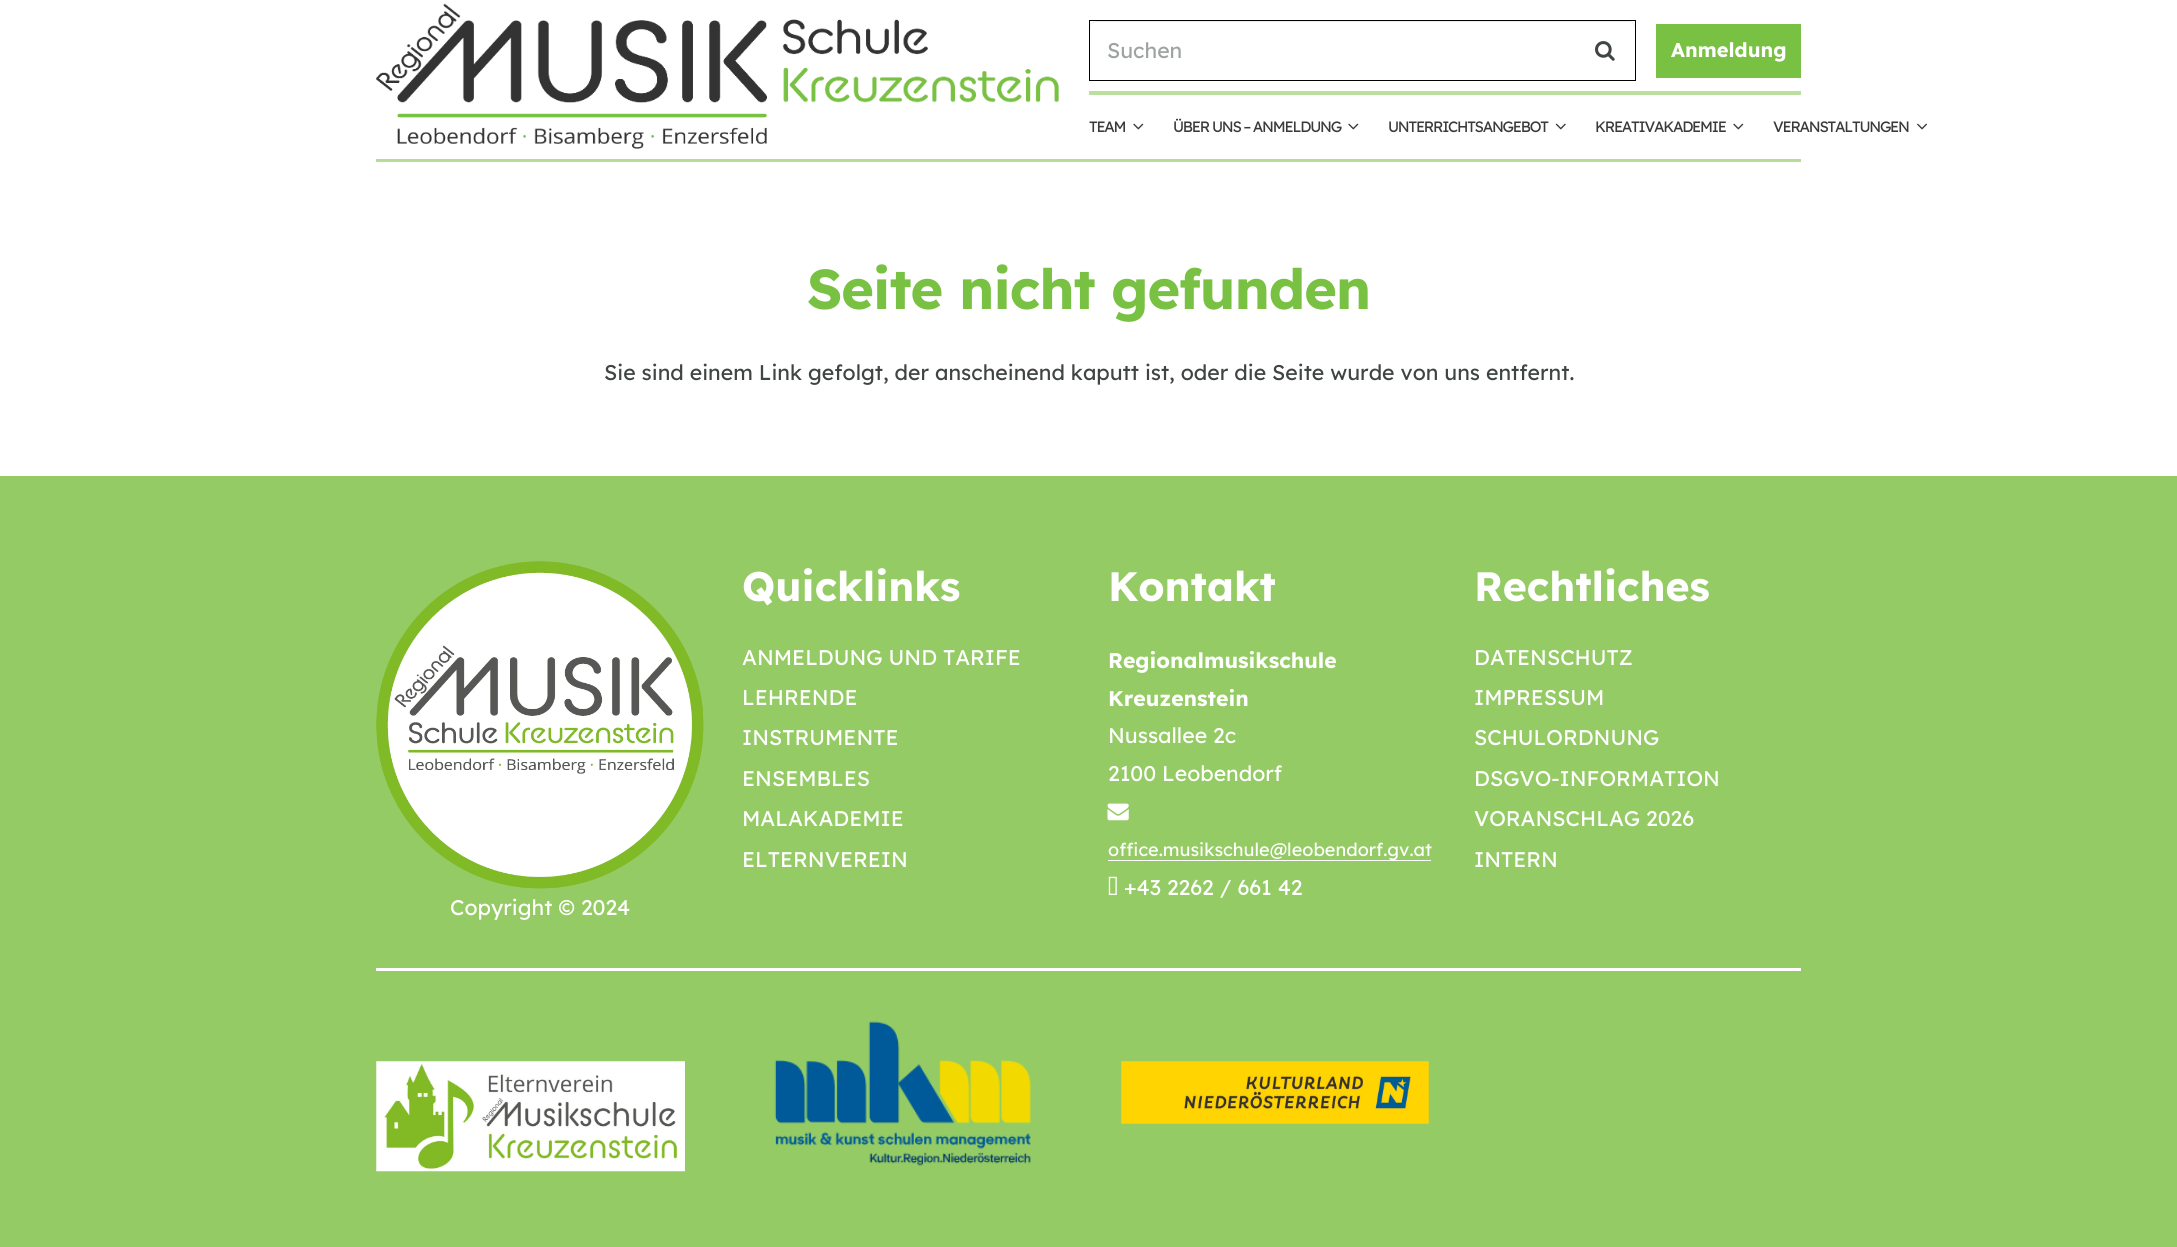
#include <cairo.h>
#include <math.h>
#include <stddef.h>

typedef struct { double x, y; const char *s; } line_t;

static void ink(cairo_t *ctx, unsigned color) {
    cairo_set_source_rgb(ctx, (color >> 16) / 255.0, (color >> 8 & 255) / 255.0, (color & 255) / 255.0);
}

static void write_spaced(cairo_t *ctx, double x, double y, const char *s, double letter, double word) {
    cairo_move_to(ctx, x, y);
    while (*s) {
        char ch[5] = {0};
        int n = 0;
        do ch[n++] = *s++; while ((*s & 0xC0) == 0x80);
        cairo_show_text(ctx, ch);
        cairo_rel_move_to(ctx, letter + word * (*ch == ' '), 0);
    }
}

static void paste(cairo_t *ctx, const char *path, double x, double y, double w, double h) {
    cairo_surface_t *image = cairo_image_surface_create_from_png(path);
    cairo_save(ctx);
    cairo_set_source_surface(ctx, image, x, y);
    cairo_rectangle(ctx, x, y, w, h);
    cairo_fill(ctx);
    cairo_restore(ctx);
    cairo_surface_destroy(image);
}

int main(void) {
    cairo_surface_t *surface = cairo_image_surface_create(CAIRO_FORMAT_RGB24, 2177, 1247);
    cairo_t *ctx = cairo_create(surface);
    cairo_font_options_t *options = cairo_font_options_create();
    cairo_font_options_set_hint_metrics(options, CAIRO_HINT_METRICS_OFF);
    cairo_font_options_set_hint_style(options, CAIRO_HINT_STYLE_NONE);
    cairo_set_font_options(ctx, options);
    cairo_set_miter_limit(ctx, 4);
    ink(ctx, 0xFFFFFF);
    cairo_paint(ctx);
    paste(ctx, "media/1.png", 376, 3, 683, 146);
    cairo_rectangle(ctx, 1089.5, 20.5, 546, 60);
    ink(ctx, 0x000000);
    cairo_set_line_width(ctx, 1);
    cairo_stroke(ctx);
    ink(ctx, 0xEBEBEB);
    cairo_new_path(ctx);
    cairo_move_to(ctx, 1096, 22);
    cairo_line_to(ctx, 1629, 22);
    cairo_curve_to(ctx, 1632, 22, 1635, 25, 1635, 29);
    cairo_line_to(ctx, 1635, 27);
    cairo_curve_to(ctx, 1635, 24, 1632, 21, 1629, 21);
    cairo_line_to(ctx, 1096, 21);
    cairo_curve_to(ctx, 1093, 21, 1090, 24, 1090, 27);
    cairo_line_to(ctx, 1090, 29);
    cairo_curve_to(ctx, 1090, 25, 1093, 22, 1096, 22);
    cairo_close_path(ctx);
    cairo_fill(ctx);
    cairo_select_font_face(ctx, "Lexend", CAIRO_FONT_SLANT_NORMAL, CAIRO_FONT_WEIGHT_NORMAL);
    cairo_set_font_size(ctx, 21.25);
    ink(ctx, 0x9FA2A2);
    cairo_move_to(ctx, 1107, 58);
    cairo_show_text(ctx, "Suchen");
    paste(ctx, "media/2.png", 1595, 41, 20, 20);
    ink(ctx, 0x79C142);
    cairo_rectangle(ctx, 1656, 24, 145, 54);
    cairo_fill(ctx);
    cairo_select_font_face(ctx, "Lexend", CAIRO_FONT_SLANT_NORMAL, CAIRO_FONT_WEIGHT_BOLD);
    cairo_set_font_size(ctx, 20);
    ink(ctx, 0xFFFFFF);
    cairo_move_to(ctx, 1671, 57);
    cairo_show_text(ctx, "Anmeldung");
    ink(ctx, 0xBBDF9F);
    cairo_rectangle(ctx, 1089, 91, 712, 4);
    cairo_fill(ctx);
    cairo_select_font_face(ctx, "Lexend", CAIRO_FONT_SLANT_NORMAL, CAIRO_FONT_WEIGHT_NORMAL);
    cairo_set_font_size(ctx, 15);
    ink(ctx, 0x3A3A3A);
    write_spaced(ctx, 1089, 132, "TEAM", -1.25, 0);
    paste(ctx, "media/3.png", 1133, 123, 11, 7);
    write_spaced(ctx, 1173, 132, "ÜBER UNS – ANMELDUNG", -1.25, 0);
    paste(ctx, "media/3.png", 1348, 123, 11, 7);
    write_spaced(ctx, 1388, 132, "UNTERRICHTSANGEBOT", -1.25, 0);
    paste(ctx, "media/4.png", 1555, 123, 11, 7);
    write_spaced(ctx, 1595, 132, "KREATIVAKADEMIE", -1.25, 0);
    paste(ctx, "media/3.png", 1733, 123, 11, 7);
    write_spaced(ctx, 1773, 132, "VERANSTALTUNGEN", -1.25, 0);
    paste(ctx, "media/5.png", 1917, 123, 10, 7);
    ink(ctx, 0xB5DD97);
    cairo_rectangle(ctx, 376, 159, 1425, 3);
    cairo_fill(ctx);
    cairo_select_font_face(ctx, "Lexend", CAIRO_FONT_SLANT_NORMAL, CAIRO_FONT_WEIGHT_BOLD);
    cairo_set_font_size(ctx, 55.75);
    ink(ctx, 0x79C142);
    write_spaced(ctx, 807, 309, "Seite nicht gefunden", -1.1, 0);
    cairo_select_font_face(ctx, "Lexend", CAIRO_FONT_SLANT_NORMAL, CAIRO_FONT_WEIGHT_NORMAL);
    cairo_set_font_size(ctx, 21.25);
    ink(ctx, 0x3F4544);
    cairo_move_to(ctx, 604, 380);
    cairo_show_text(ctx, "Sie sind einem Link gefolgt, der anscheinend kaputt ist, oder die Seite wurde von uns entfernt.");
    ink(ctx, 0x94CB64);
    cairo_rectangle(ctx, 0, 476, 2177, 771);
    cairo_fill(ctx);
    cairo_select_font_face(ctx, "Lexend", CAIRO_FONT_SLANT_NORMAL, CAIRO_FONT_WEIGHT_BOLD);
    cairo_set_font_size(ctx, 41);
    ink(ctx, 0xFFFFFF);
    cairo_move_to(ctx, 742, 601);
    cairo_show_text(ctx, "Quicklinks");
    cairo_select_font_face(ctx, "Lexend", CAIRO_FONT_SLANT_NORMAL, CAIRO_FONT_WEIGHT_NORMAL);
    cairo_set_font_size(ctx, 21.25);
    {
        static const line_t items[] = {
            {742, 665, "ANMELDUNG UND TARIFE"},
            {742, 705, "LEHRENDE"},
            {742, 745, "INSTRUMENTE"},
            {742, 786, "ENSEMBLES"},
            {742, 826, "MALAKADEMIE"},
            {742, 867, "ELTERNVEREIN"},
        };
        for (size_t i = 0; i < sizeof items / sizeof *items; i++) {
            cairo_move_to(ctx, items[i].x, items[i].y);
            cairo_show_text(ctx, items[i].s);
        }
    }
    cairo_select_font_face(ctx, "Lexend", CAIRO_FONT_SLANT_NORMAL, CAIRO_FONT_WEIGHT_BOLD);
    cairo_set_font_size(ctx, 41);
    cairo_move_to(ctx, 1108, 601);
    cairo_show_text(ctx, "Kontakt");
    cairo_set_font_size(ctx, 21.25);
    cairo_move_to(ctx, 1108, 668);
    cairo_show_text(ctx, "Regionalmusikschule");
    cairo_move_to(ctx, 1108, 706);
    cairo_show_text(ctx, "Kreuzenstein");
    cairo_select_font_face(ctx, "Lexend", CAIRO_FONT_SLANT_NORMAL, CAIRO_FONT_WEIGHT_NORMAL);
    cairo_move_to(ctx, 1108, 743);
    cairo_show_text(ctx, "Nussallee 2c");
    cairo_move_to(ctx, 1108, 781);
    cairo_show_text(ctx, "2100 Leobendorf");
    paste(ctx, "media/6.png", 1107, 803, 22, 18);
    cairo_rectangle(ctx, 1108, 860, 323, 1);
    cairo_fill(ctx);
    cairo_set_font_size(ctx, 18.1);
    cairo_move_to(ctx, 1108, 856);
    cairo_show_text(ctx, "office.musikschule@leobendorf.gv.at");
    paste(ctx, "media/7.png", 1108, 876, 9, 19);
    cairo_set_font_size(ctx, 21.25);
    cairo_move_to(ctx, 1124, 895);
    cairo_show_text(ctx, "+43 2262 / 661 42");
    cairo_select_font_face(ctx, "Lexend", CAIRO_FONT_SLANT_NORMAL, CAIRO_FONT_WEIGHT_BOLD);
    cairo_set_font_size(ctx, 41);
    cairo_move_to(ctx, 1474, 601);
    cairo_show_text(ctx, "Rechtliches");
    cairo_select_font_face(ctx, "Lexend", CAIRO_FONT_SLANT_NORMAL, CAIRO_FONT_WEIGHT_NORMAL);
    cairo_set_font_size(ctx, 21.25);
    {
        static const line_t items[] = {
            {1474, 665, "DATENSCHUTZ"},
            {1474, 705, "IMPRESSUM"},
            {1474, 745, "SCHULORDNUNG"},
            {1474, 786, "DSGVO-INFORMATION"},
            {1474, 826, "VORANSCHLAG 2026"},
            {1474, 867, "INTERN"},
        };
        for (size_t i = 0; i < sizeof items / sizeof *items; i++) {
            cairo_move_to(ctx, items[i].x, items[i].y);
            cairo_show_text(ctx, items[i].s);
        }
    }
    paste(ctx, "media/8.png", 376, 561, 328, 328);
    cairo_move_to(ctx, 450, 915);
    cairo_show_text(ctx, "Copyright © 2024");
    cairo_rectangle(ctx, 376, 968, 1425, 3);
    cairo_fill(ctx);
    paste(ctx, "media/9.png", 376, 1061, 309, 111);
    paste(ctx, "media/10.png", 774, 1021, 257, 145);
    paste(ctx, "media/11.png", 1121, 1061, 308, 63);
    cairo_surface_write_to_png(surface, "image.png");
    cairo_font_options_destroy(options);
    cairo_destroy(ctx);
    cairo_surface_destroy(surface);
    return 0;
}
